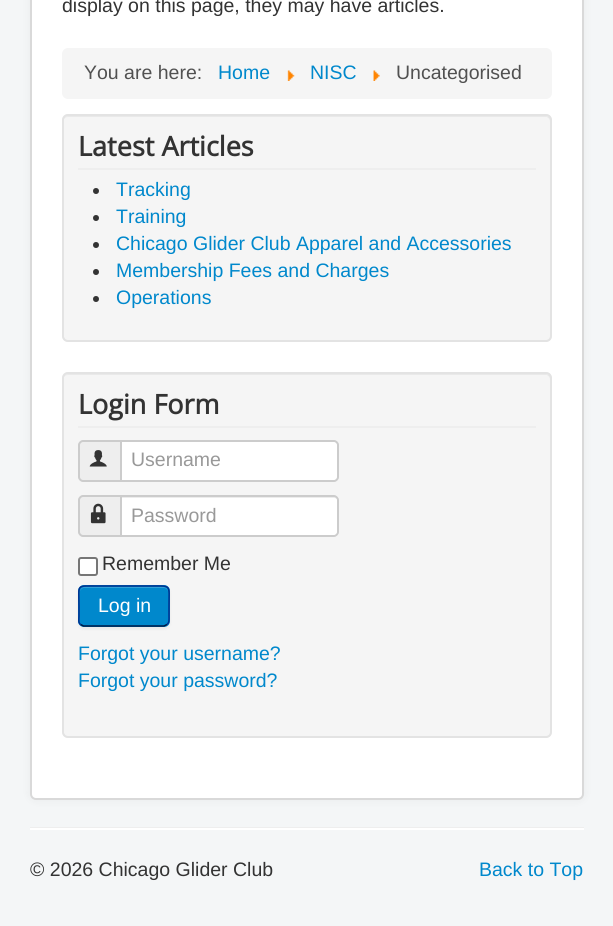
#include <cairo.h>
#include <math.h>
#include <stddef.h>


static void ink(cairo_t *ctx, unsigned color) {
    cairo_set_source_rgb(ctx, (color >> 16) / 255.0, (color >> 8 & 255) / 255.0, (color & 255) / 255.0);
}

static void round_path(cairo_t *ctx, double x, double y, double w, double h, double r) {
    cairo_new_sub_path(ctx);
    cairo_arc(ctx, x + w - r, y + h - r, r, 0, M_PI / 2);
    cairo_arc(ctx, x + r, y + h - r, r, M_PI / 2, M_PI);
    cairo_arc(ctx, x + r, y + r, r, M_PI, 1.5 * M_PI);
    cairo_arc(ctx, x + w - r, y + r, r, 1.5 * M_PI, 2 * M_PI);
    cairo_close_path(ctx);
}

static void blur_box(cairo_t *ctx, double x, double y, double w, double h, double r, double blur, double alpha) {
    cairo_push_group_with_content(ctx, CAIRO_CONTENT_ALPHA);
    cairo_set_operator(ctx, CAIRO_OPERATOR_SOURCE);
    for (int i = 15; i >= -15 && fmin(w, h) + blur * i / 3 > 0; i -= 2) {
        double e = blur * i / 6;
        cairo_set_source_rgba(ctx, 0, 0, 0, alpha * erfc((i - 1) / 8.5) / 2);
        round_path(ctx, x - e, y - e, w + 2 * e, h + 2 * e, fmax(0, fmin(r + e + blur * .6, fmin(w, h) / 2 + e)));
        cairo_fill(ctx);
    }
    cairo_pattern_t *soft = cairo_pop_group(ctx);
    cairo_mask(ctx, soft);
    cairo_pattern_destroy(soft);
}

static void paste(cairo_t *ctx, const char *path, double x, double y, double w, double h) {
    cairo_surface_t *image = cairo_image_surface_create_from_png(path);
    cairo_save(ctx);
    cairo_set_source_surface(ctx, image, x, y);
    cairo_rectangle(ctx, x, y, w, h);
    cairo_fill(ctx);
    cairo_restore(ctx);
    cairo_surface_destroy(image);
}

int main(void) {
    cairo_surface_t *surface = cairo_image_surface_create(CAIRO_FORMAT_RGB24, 613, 926);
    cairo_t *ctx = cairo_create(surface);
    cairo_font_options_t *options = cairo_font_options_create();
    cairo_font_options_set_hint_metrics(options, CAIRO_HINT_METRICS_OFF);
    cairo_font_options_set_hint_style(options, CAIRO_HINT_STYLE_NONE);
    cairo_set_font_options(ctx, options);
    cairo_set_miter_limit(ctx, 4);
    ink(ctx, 0xF4F6F7);
    cairo_paint(ctx);
    ink(ctx, 0x000000);
    blur_box(ctx, 30, -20, 554, 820, 6, 4.5, 0.05);
    ink(ctx, 0xFFFFFF);
    round_path(ctx, 30, -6, 554, 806, 6);
    cairo_fill(ctx);
    round_path(ctx, 31, -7, 552, 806, 5);
    cairo_set_source_rgba(ctx, 0, 0, 0, 0.15);
    cairo_stroke(ctx);
    cairo_select_font_face(ctx, "Liberation Sans", CAIRO_FONT_SLANT_NORMAL, CAIRO_FONT_WEIGHT_NORMAL);
    cairo_set_font_size(ctx, 19.5);
    ink(ctx, 0x333333);
    cairo_move_to(ctx, 62, 12);
    cairo_show_text(ctx, "display on this page, they may have articles.");
    ink(ctx, 0xF5F5F5);
    round_path(ctx, 62, 48, 490, 51, 6);
    cairo_fill(ctx);
    ink(ctx, 0x515151);
    cairo_move_to(ctx, 84, 79);
    cairo_show_text(ctx, "You are here:");
    ink(ctx, 0x0088CC);
    cairo_move_to(ctx, 218, 79);
    cairo_show_text(ctx, "Home");
    paste(ctx, "media/1.png", 287, 70, 8, 11);
    cairo_move_to(ctx, 310, 79);
    cairo_show_text(ctx, "NISC");
    paste(ctx, "media/2.png", 373, 70, 7, 11);
    ink(ctx, 0x515151);
    cairo_move_to(ctx, 396, 79);
    cairo_show_text(ctx, "Uncategorised");
    ink(ctx, 0xF5F5F5);
    round_path(ctx, 62, 114, 490, 228, 6);
    cairo_fill(ctx);
    ink(ctx, 0xE9E9E9);
    cairo_new_path(ctx);
    cairo_move_to(ctx, 68, 117);
    cairo_line_to(ctx, 546, 117);
    cairo_curve_to(ctx, 548, 117, 550, 119, 550, 122);
    cairo_line_to(ctx, 550, 339);
    cairo_curve_to(ctx, 551, 338, 551, 337, 551, 336);
    cairo_line_to(ctx, 551, 121);
    cairo_curve_to(ctx, 551, 118, 549, 116, 546, 116);
    cairo_line_to(ctx, 68, 116);
    cairo_curve_to(ctx, 65, 116, 63, 118, 63, 121);
    cairo_line_to(ctx, 63, 122);
    cairo_curve_to(ctx, 63, 119, 65, 117, 68, 117);
    cairo_close_path(ctx);
    cairo_fill(ctx);
    round_path(ctx, 63, 115, 488, 226, 5);
    ink(ctx, 0xE3E3E3);
    cairo_stroke(ctx);
    ink(ctx, 0xEEEEEE);
    cairo_rectangle(ctx, 78, 168, 458, 2);
    cairo_fill(ctx);
    cairo_select_font_face(ctx, "Open Sans", CAIRO_FONT_SLANT_NORMAL, CAIRO_FONT_WEIGHT_BOLD);
    cairo_set_font_size(ctx, 27);
    ink(ctx, 0x333333);
    cairo_move_to(ctx, 78, 156);
    cairo_show_text(ctx, "Latest Articles");
    cairo_new_path(ctx);
    cairo_arc(ctx, 96, 191, 3, 0, 2 * M_PI);
    cairo_fill(ctx);
    cairo_select_font_face(ctx, "Liberation Sans", CAIRO_FONT_SLANT_NORMAL, CAIRO_FONT_WEIGHT_NORMAL);
    cairo_set_font_size(ctx, 19.5);
    ink(ctx, 0x0088CC);
    cairo_move_to(ctx, 116, 196);
    cairo_show_text(ctx, "Tracking");
    ink(ctx, 0x333333);
    cairo_new_path(ctx);
    cairo_arc(ctx, 96, 218, 3, 0, 2 * M_PI);
    cairo_fill(ctx);
    ink(ctx, 0x0088CC);
    cairo_move_to(ctx, 116, 223);
    cairo_show_text(ctx, "Training");
    ink(ctx, 0x333333);
    cairo_new_path(ctx);
    cairo_arc(ctx, 96, 245, 3, 0, 2 * M_PI);
    cairo_fill(ctx);
    ink(ctx, 0x0088CC);
    cairo_move_to(ctx, 116, 250);
    cairo_show_text(ctx, "Chicago Glider Club Apparel and Accessories");
    ink(ctx, 0x333333);
    cairo_new_path(ctx);
    cairo_arc(ctx, 96, 272, 3, 0, 2 * M_PI);
    cairo_fill(ctx);
    ink(ctx, 0x0088CC);
    cairo_move_to(ctx, 116, 277);
    cairo_show_text(ctx, "Membership Fees and Charges");
    ink(ctx, 0x333333);
    cairo_new_path(ctx);
    cairo_arc(ctx, 96, 299, 3, 0, 2 * M_PI);
    cairo_fill(ctx);
    ink(ctx, 0x0088CC);
    cairo_move_to(ctx, 116, 304);
    cairo_show_text(ctx, "Operations");
    ink(ctx, 0xF5F5F5);
    round_path(ctx, 62, 372, 490, 366, 6);
    cairo_fill(ctx);
    ink(ctx, 0xE9E9E9);
    cairo_new_path(ctx);
    cairo_move_to(ctx, 68, 375);
    cairo_line_to(ctx, 546, 375);
    cairo_curve_to(ctx, 548, 375, 550, 377, 550, 380);
    cairo_line_to(ctx, 550, 735);
    cairo_curve_to(ctx, 551, 734, 551, 733, 551, 732);
    cairo_line_to(ctx, 551, 379);
    cairo_curve_to(ctx, 551, 376, 549, 374, 546, 374);
    cairo_line_to(ctx, 68, 374);
    cairo_curve_to(ctx, 65, 374, 63, 376, 63, 379);
    cairo_line_to(ctx, 63, 380);
    cairo_curve_to(ctx, 63, 377, 65, 375, 68, 375);
    cairo_close_path(ctx);
    cairo_fill(ctx);
    round_path(ctx, 63, 373, 488, 364, 5);
    ink(ctx, 0xE3E3E3);
    cairo_stroke(ctx);
    ink(ctx, 0xEEEEEE);
    cairo_rectangle(ctx, 78, 426, 458, 2);
    cairo_fill(ctx);
    cairo_select_font_face(ctx, "Open Sans", CAIRO_FONT_SLANT_NORMAL, CAIRO_FONT_WEIGHT_BOLD);
    cairo_set_font_size(ctx, 27);
    ink(ctx, 0x333333);
    cairo_move_to(ctx, 78, 414);
    cairo_show_text(ctx, "Login Form");
    ink(ctx, 0xEEEEEE);
    cairo_new_path(ctx);
    cairo_move_to(ctx, 83, 441);
    cairo_line_to(ctx, 121, 441);
    cairo_line_to(ctx, 121, 481);
    cairo_line_to(ctx, 83, 481);
    cairo_curve_to(ctx, 81, 481, 79, 479, 79, 477);
    cairo_line_to(ctx, 79, 445);
    cairo_curve_to(ctx, 79, 443, 81, 441, 83, 441);
    cairo_close_path(ctx);
    cairo_fill_preserve(ctx);
    ink(ctx, 0xCCCCCC);
    cairo_stroke(ctx);
    paste(ctx, "media/3.png", 89, 450, 18, 17);
    ink(ctx, 0xFFFFFF);
    cairo_new_path(ctx);
    cairo_move_to(ctx, 121, 441);
    cairo_line_to(ctx, 334, 441);
    cairo_curve_to(ctx, 336, 441, 338, 443, 338, 445);
    cairo_line_to(ctx, 338, 477);
    cairo_curve_to(ctx, 338, 479, 336, 481, 334, 481);
    cairo_line_to(ctx, 121, 481);
    cairo_close_path(ctx);
    cairo_fill_preserve(ctx);
    ink(ctx, 0xCCCCCC);
    cairo_stroke(ctx);
    cairo_select_font_face(ctx, "Liberation Sans", CAIRO_FONT_SLANT_NORMAL, CAIRO_FONT_WEIGHT_NORMAL);
    cairo_set_font_size(ctx, 19.5);
    ink(ctx, 0x999999);
    cairo_move_to(ctx, 131, 466);
    cairo_show_text(ctx, "Username");
    ink(ctx, 0xEEEEEE);
    cairo_new_path(ctx);
    cairo_move_to(ctx, 83, 496);
    cairo_line_to(ctx, 121, 496);
    cairo_line_to(ctx, 121, 536);
    cairo_line_to(ctx, 83, 536);
    cairo_curve_to(ctx, 81, 536, 79, 534, 79, 532);
    cairo_line_to(ctx, 79, 500);
    cairo_curve_to(ctx, 79, 498, 81, 496, 83, 496);
    cairo_close_path(ctx);
    cairo_fill_preserve(ctx);
    ink(ctx, 0xCCCCCC);
    cairo_stroke(ctx);
    paste(ctx, "media/4.png", 90, 503, 16, 21);
    ink(ctx, 0xFFFFFF);
    cairo_new_path(ctx);
    cairo_move_to(ctx, 120, 495);
    cairo_line_to(ctx, 334, 495);
    cairo_curve_to(ctx, 337, 495, 339, 497, 339, 500);
    cairo_line_to(ctx, 339, 532);
    cairo_curve_to(ctx, 339, 535, 337, 537, 334, 537);
    cairo_line_to(ctx, 120, 537);
    cairo_close_path(ctx);
    cairo_fill(ctx);
    ink(ctx, 0xECECEC);
    cairo_new_path(ctx);
    cairo_move_to(ctx, 122, 498);
    cairo_line_to(ctx, 334, 498);
    cairo_curve_to(ctx, 336, 498, 338, 499, 338, 501);
    cairo_line_to(ctx, 338, 500);
    cairo_curve_to(ctx, 338, 498, 337, 497, 335, 497);
    cairo_line_to(ctx, 122, 497);
    cairo_close_path(ctx);
    cairo_fill(ctx);
    cairo_new_path(ctx);
    cairo_move_to(ctx, 121, 496);
    cairo_line_to(ctx, 334, 496);
    cairo_curve_to(ctx, 336, 496, 338, 498, 338, 500);
    cairo_line_to(ctx, 338, 532);
    cairo_curve_to(ctx, 338, 534, 336, 536, 334, 536);
    cairo_line_to(ctx, 121, 536);
    cairo_close_path(ctx);
    ink(ctx, 0xCCCCCC);
    cairo_stroke(ctx);
    ink(ctx, 0x999999);
    cairo_move_to(ctx, 131, 522);
    cairo_show_text(ctx, "Password");
    ink(ctx, 0xFFFFFF);
    round_path(ctx, 79, 558, 18, 17, 2);
    cairo_fill_preserve(ctx);
    ink(ctx, 0x767676);
    cairo_stroke(ctx);
    ink(ctx, 0x333333);
    cairo_move_to(ctx, 102, 570);
    cairo_show_text(ctx, "Remember Me");
    ink(ctx, 0x000000);
    blur_box(ctx, 78, 587, 92, 42, 6, 1.5, 0.05);
    ink(ctx, 0x0088CC);
    round_path(ctx, 78, 585, 92, 42, 6);
    cairo_fill(ctx);
    ink(ctx, 0x33A0D6);
    cairo_new_path(ctx);
    cairo_move_to(ctx, 84, 588);
    cairo_line_to(ctx, 164, 588);
    cairo_curve_to(ctx, 166, 588, 168, 590, 168, 592);
    cairo_curve_to(ctx, 168, 589, 166, 587, 163, 587);
    cairo_line_to(ctx, 85, 587);
    cairo_curve_to(ctx, 82, 587, 80, 589, 80, 592);
    cairo_curve_to(ctx, 80, 590, 82, 588, 84, 588);
    cairo_close_path(ctx);
    cairo_fill(ctx);
    cairo_new_path(ctx);
    cairo_move_to(ctx, 167, 624.5);
    cairo_line_to(ctx, 164, 626);
    cairo_line_to(ctx, 83.5, 626);
    cairo_line_to(ctx, 80.5, 624.5);
    ink(ctx, 0x001641);
    cairo_set_line_width(ctx, 1.5);
    cairo_stroke(ctx);
    cairo_new_path(ctx);
    cairo_move_to(ctx, 80.5, 624.5);
    cairo_curve_to(ctx, 78, 622.5, 79, 619, 79, 616);
    cairo_line_to(ctx, 79, 606);
    cairo_curve_to(ctx, 79, 584, 75.5, 586, 97, 586);
    cairo_line_to(ctx, 150, 586);
    cairo_curve_to(ctx, 172, 586, 169, 584, 169, 606);
    cairo_line_to(ctx, 169, 616);
    cairo_curve_to(ctx, 169, 619, 169.5, 622.5, 167, 624.5);
    ink(ctx, 0x002F8D);
    cairo_stroke(ctx);
    ink(ctx, 0xFFFFFF);
    cairo_move_to(ctx, 98, 612);
    cairo_show_text(ctx, "Log in");
    ink(ctx, 0x0088CC);
    cairo_move_to(ctx, 78, 660);
    cairo_show_text(ctx, "Forgot your username?");
    cairo_move_to(ctx, 78, 687);
    cairo_show_text(ctx, "Forgot your password?");
    ink(ctx, 0xEEEEEE);
    cairo_rectangle(ctx, 30, 827, 554, 1);
    cairo_fill(ctx);
    ink(ctx, 0xFFFFFF);
    cairo_rectangle(ctx, 30, 828, 554, 2);
    cairo_fill(ctx);
    ink(ctx, 0x333333);
    cairo_move_to(ctx, 30, 876);
    cairo_show_text(ctx, "© 2026 Chicago Glider Club");
    ink(ctx, 0x0088CC);
    cairo_move_to(ctx, 479, 876);
    cairo_show_text(ctx, "Back to Top");
    cairo_surface_write_to_png(surface, "image.png");
    cairo_font_options_destroy(options);
    cairo_destroy(ctx);
    cairo_surface_destroy(surface);
    return 0;
}
